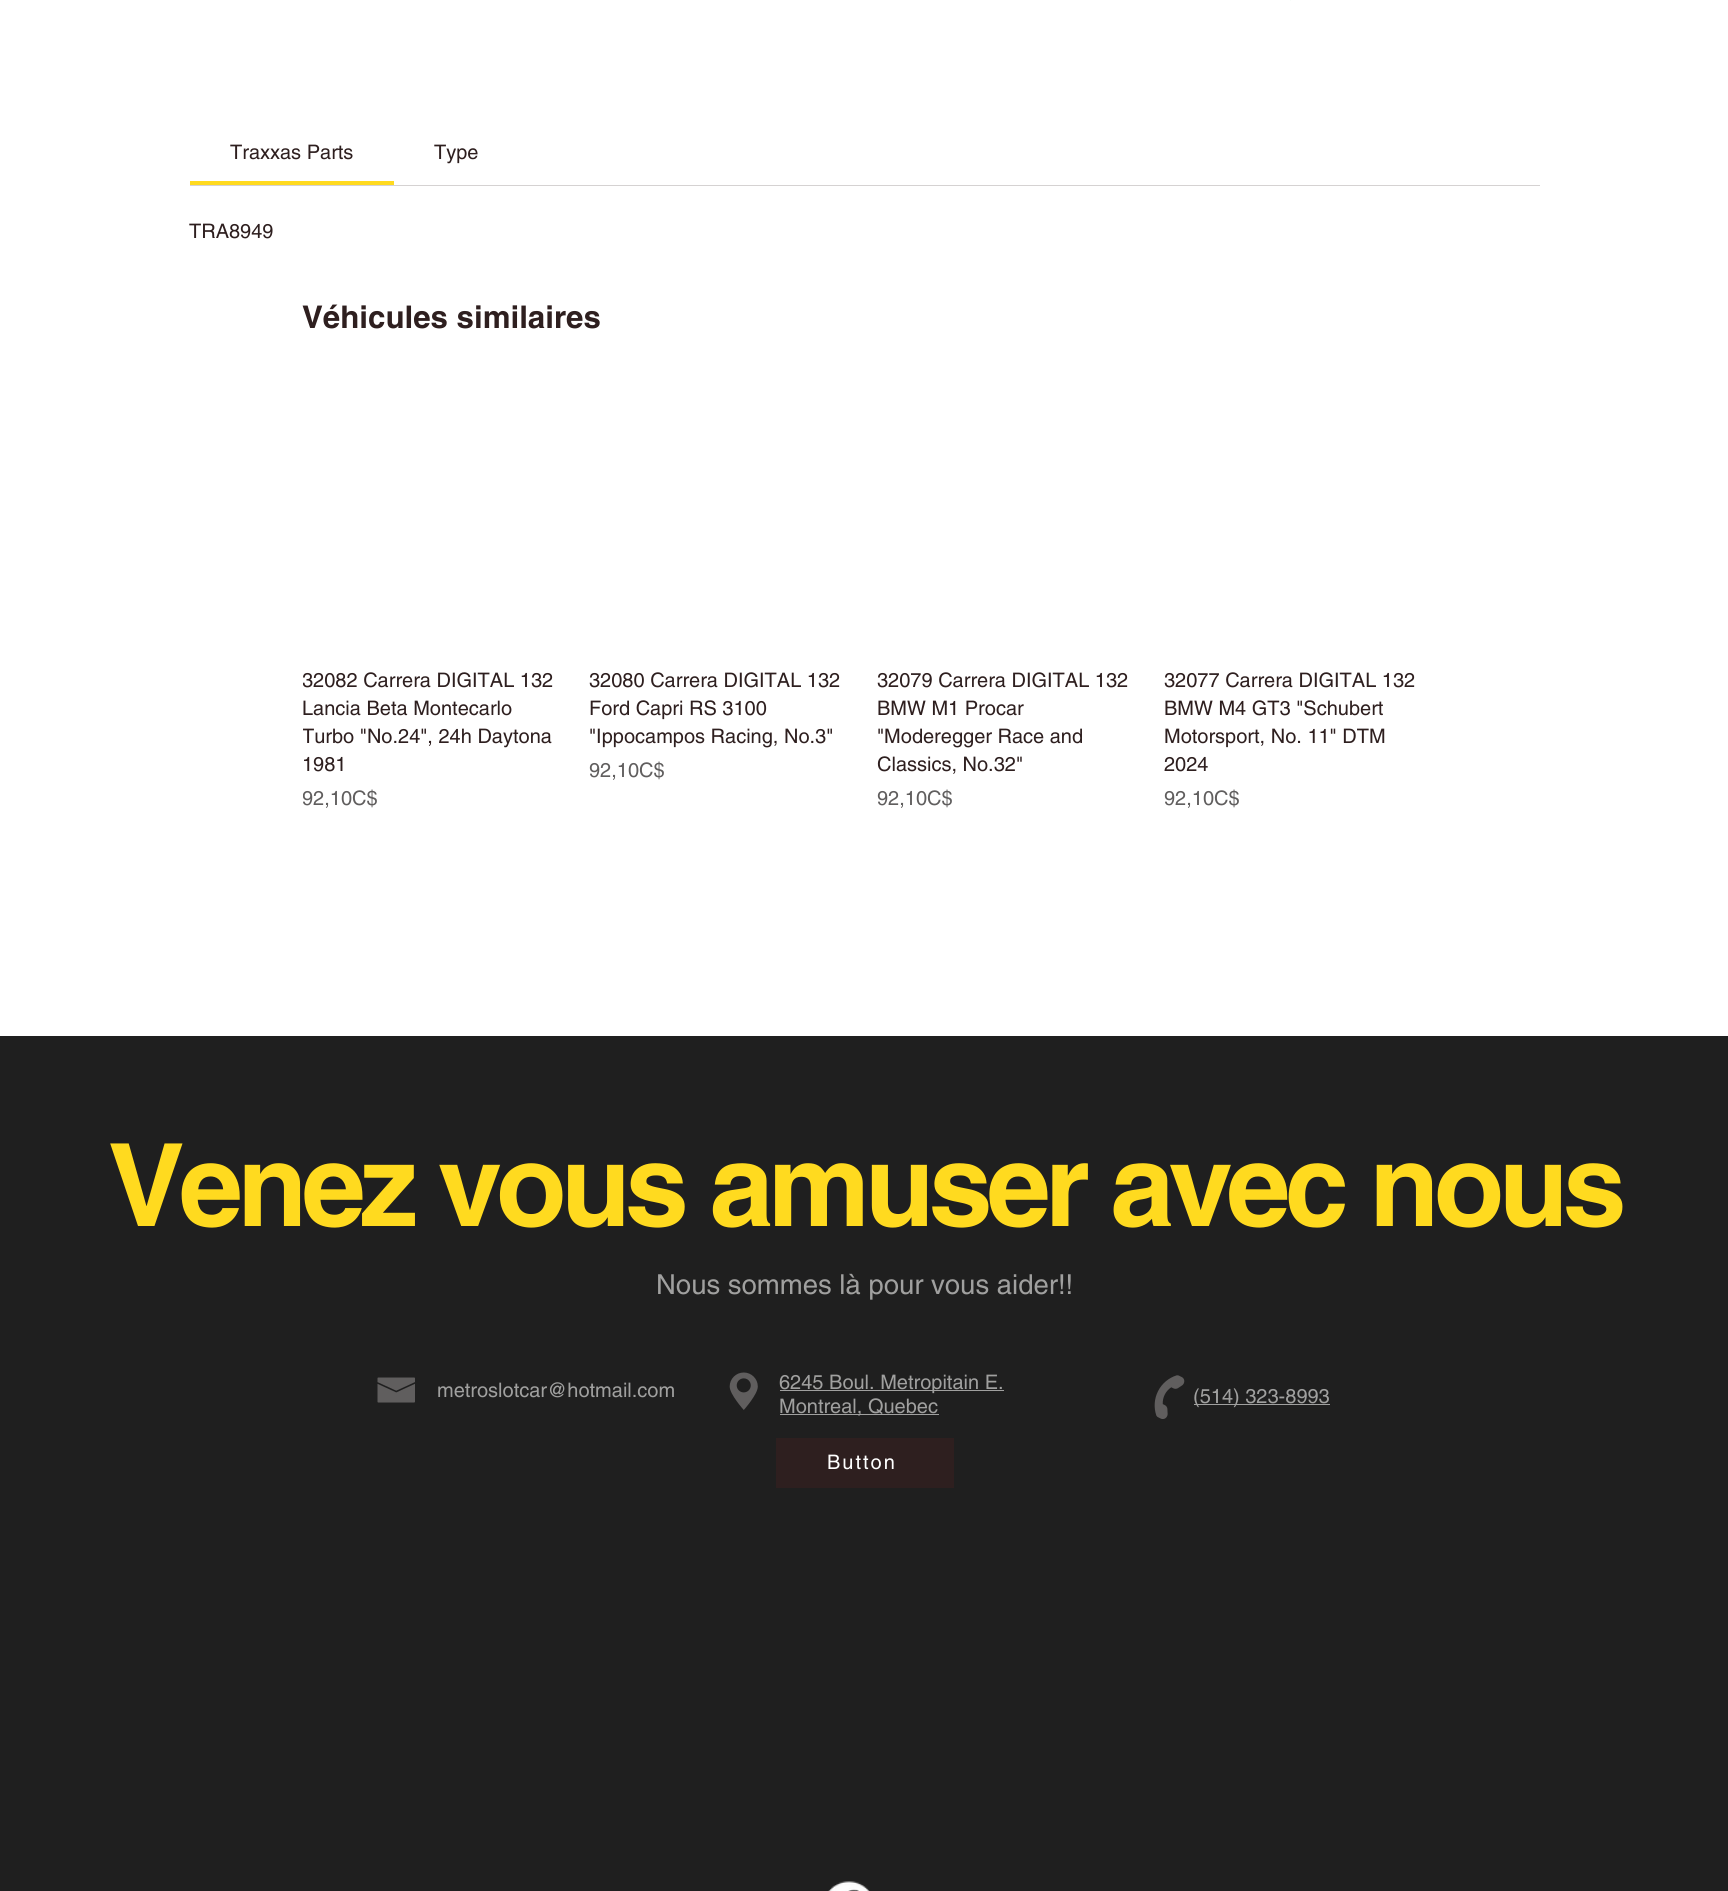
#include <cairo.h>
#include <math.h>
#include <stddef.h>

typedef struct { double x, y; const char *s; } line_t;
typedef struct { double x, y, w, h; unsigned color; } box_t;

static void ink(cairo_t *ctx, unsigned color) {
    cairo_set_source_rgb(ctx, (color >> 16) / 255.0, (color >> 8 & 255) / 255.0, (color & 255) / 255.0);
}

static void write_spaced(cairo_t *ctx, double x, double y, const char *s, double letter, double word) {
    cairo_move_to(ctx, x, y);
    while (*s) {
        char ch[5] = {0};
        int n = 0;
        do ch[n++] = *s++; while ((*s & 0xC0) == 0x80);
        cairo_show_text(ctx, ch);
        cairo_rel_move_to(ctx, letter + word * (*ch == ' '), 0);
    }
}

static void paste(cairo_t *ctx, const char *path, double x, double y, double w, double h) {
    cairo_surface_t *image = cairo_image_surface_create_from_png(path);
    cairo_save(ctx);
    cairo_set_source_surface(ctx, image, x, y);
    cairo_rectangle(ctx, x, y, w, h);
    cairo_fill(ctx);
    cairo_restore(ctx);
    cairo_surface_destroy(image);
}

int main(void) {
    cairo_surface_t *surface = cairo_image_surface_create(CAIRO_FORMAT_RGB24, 1728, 1891);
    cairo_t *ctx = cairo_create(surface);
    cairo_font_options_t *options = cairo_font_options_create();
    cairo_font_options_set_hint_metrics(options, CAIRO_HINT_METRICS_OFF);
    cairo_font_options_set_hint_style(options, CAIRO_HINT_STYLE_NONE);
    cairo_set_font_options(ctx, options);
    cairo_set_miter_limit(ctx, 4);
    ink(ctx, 0xFFFFFF);
    cairo_paint(ctx);
    {
        static const box_t items[] = {
            {1290, 0, 1, 1, 0xF8FDFA},
            {190, 185, 1350, 1, 0xD5D2D2},
            {190, 181, 204, 4, 0xFFDA1F},
        };
        for (size_t i = 0; i < sizeof items / sizeof *items; i++) {
            ink(ctx, items[i].color);
            cairo_rectangle(ctx, items[i].x, items[i].y, items[i].w, items[i].h);
            cairo_fill(ctx);
        }
    }
    cairo_select_font_face(ctx, "helvetica", CAIRO_FONT_SLANT_NORMAL, CAIRO_FONT_WEIGHT_NORMAL);
    cairo_set_font_size(ctx, 20);
    ink(ctx, 0x2E1F1F);
    {
        static const line_t items[] = {
            {230, 159, "Traxxas Parts"},
            {434, 159, "Type"},
            {189, 238, "TRA8949"},
        };
        for (size_t i = 0; i < sizeof items / sizeof *items; i++) {
            cairo_move_to(ctx, items[i].x, items[i].y);
            cairo_show_text(ctx, items[i].s);
        }
    }
    cairo_select_font_face(ctx, "helvetica", CAIRO_FONT_SLANT_NORMAL, CAIRO_FONT_WEIGHT_BOLD);
    cairo_set_font_size(ctx, 31.25);
    cairo_move_to(ctx, 302, 328);
    cairo_show_text(ctx, "Véhicules similaires");
    cairo_save(ctx);
    cairo_rectangle(ctx, 303, 384, 1125, 430);
    cairo_clip(ctx);
    cairo_select_font_face(ctx, "helvetica", CAIRO_FONT_SLANT_NORMAL, CAIRO_FONT_WEIGHT_NORMAL);
    cairo_set_font_size(ctx, 20);
    cairo_move_to(ctx, 302, 687);
    cairo_show_text(ctx, "32082 Carrera DIGITAL 132");
    cairo_restore(ctx);
    cairo_select_font_face(ctx, "helvetica", CAIRO_FONT_SLANT_NORMAL, CAIRO_FONT_WEIGHT_NORMAL);
    cairo_set_font_size(ctx, 20);
    cairo_move_to(ctx, 302, 715);
    cairo_show_text(ctx, "Lancia Beta Montecarlo");
    cairo_save(ctx);
    cairo_rectangle(ctx, 303, 384, 1125, 430);
    cairo_clip(ctx);
    cairo_move_to(ctx, 302, 743);
    cairo_show_text(ctx, "Turbo \"No.24\", 24h Daytona");
    cairo_restore(ctx);
    cairo_move_to(ctx, 302, 771);
    cairo_show_text(ctx, "1981");
    cairo_save(ctx);
    cairo_rectangle(ctx, 303, 384, 1125, 430);
    cairo_clip(ctx);
    ink(ctx, 0x605E5E);
    cairo_move_to(ctx, 302, 805);
    cairo_show_text(ctx, "92,10C$");
    cairo_restore(ctx);
    {
        static const line_t items[] = {
            {589, 687, "32080 Carrera DIGITAL 132"},
            {589, 715, "Ford Capri RS 3100"},
            {589, 743, "\"Ippocampos Racing, No.3\""},
        };
        for (size_t i = 0; i < sizeof items / sizeof *items; i++) {
            cairo_move_to(ctx, items[i].x, items[i].y);
            cairo_show_text(ctx, items[i].s);
        }
    }
    ink(ctx, 0x605E5E);
    cairo_move_to(ctx, 589, 777);
    cairo_show_text(ctx, "92,10C$");
    ink(ctx, 0x2E1F1F);
    {
        static const line_t items[] = {
            {877, 687, "32079 Carrera DIGITAL 132"},
            {877, 715, "BMW M1 Procar"},
            {877, 743, "\"Moderegger Race and"},
            {877, 771, "Classics, No.32\""},
        };
        for (size_t i = 0; i < sizeof items / sizeof *items; i++) {
            cairo_move_to(ctx, items[i].x, items[i].y);
            cairo_show_text(ctx, items[i].s);
        }
    }
    ink(ctx, 0x605E5E);
    cairo_move_to(ctx, 877, 805);
    cairo_show_text(ctx, "92,10C$");
    ink(ctx, 0x2E1F1F);
    {
        static const line_t items[] = {
            {1164, 687, "32077 Carrera DIGITAL 132"},
            {1164, 715, "BMW M4 GT3 \"Schubert"},
            {1164, 743, "Motorsport, No. 11\" DTM"},
            {1164, 771, "2024"},
        };
        for (size_t i = 0; i < sizeof items / sizeof *items; i++) {
            cairo_move_to(ctx, items[i].x, items[i].y);
            cairo_show_text(ctx, items[i].s);
        }
    }
    ink(ctx, 0x605E5E);
    cairo_move_to(ctx, 1164, 805);
    cairo_show_text(ctx, "92,10C$");
    ink(ctx, 0x1F1F1F);
    cairo_rectangle(ctx, 0, 1036, 1728, 855);
    cairo_fill(ctx);
    cairo_select_font_face(ctx, "helvetica", CAIRO_FONT_SLANT_NORMAL, CAIRO_FONT_WEIGHT_BOLD);
    cairo_set_font_size(ctx, 115);
    ink(ctx, 0xFFDA1F);
    write_spaced(ctx, 108, 1226, "Venez vous amuser avec nous", -5.75, 0);
    cairo_select_font_face(ctx, "helvetica", CAIRO_FONT_SLANT_NORMAL, CAIRO_FONT_WEIGHT_NORMAL);
    cairo_set_font_size(ctx, 27.5);
    ink(ctx, 0xA0A09F);
    cairo_move_to(ctx, 656, 1294);
    cairo_show_text(ctx, "Nous sommes là pour vous aider!!");
    paste(ctx, "media/1.png", 377, 1377, 38, 26);
    cairo_set_font_size(ctx, 20);
    cairo_move_to(ctx, 437, 1397);
    cairo_show_text(ctx, "metroslotcar@hotmail.com");
    paste(ctx, "media/2.png", 729, 1372, 29, 38);
    cairo_rectangle(ctx, 780, 1390, 224, 1);
    cairo_fill(ctx);
    cairo_move_to(ctx, 779, 1389);
    cairo_show_text(ctx, "6245 Boul. Metropitain E.");
    cairo_rectangle(ctx, 780, 1414, 159, 1);
    cairo_fill(ctx);
    cairo_move_to(ctx, 779, 1413);
    cairo_show_text(ctx, "Montreal, Quebec");
    paste(ctx, "media/3.png", 1154, 1375, 31, 44);
    cairo_rectangle(ctx, 1194, 1404, 136, 1);
    cairo_fill(ctx);
    cairo_move_to(ctx, 1193, 1403);
    cairo_show_text(ctx, "(514) 323-8993");
    ink(ctx, 0x2E1F1F);
    cairo_rectangle(ctx, 776, 1438, 178, 50);
    cairo_fill(ctx);
    ink(ctx, 0xFFFFFF);
    write_spaced(ctx, 827, 1469, "Button", 2, 0);
    paste(ctx, "media/4.png", 828, 1881, 42, 10);
    cairo_surface_write_to_png(surface, "image.png");
    cairo_font_options_destroy(options);
    cairo_destroy(ctx);
    cairo_surface_destroy(surface);
    return 0;
}
